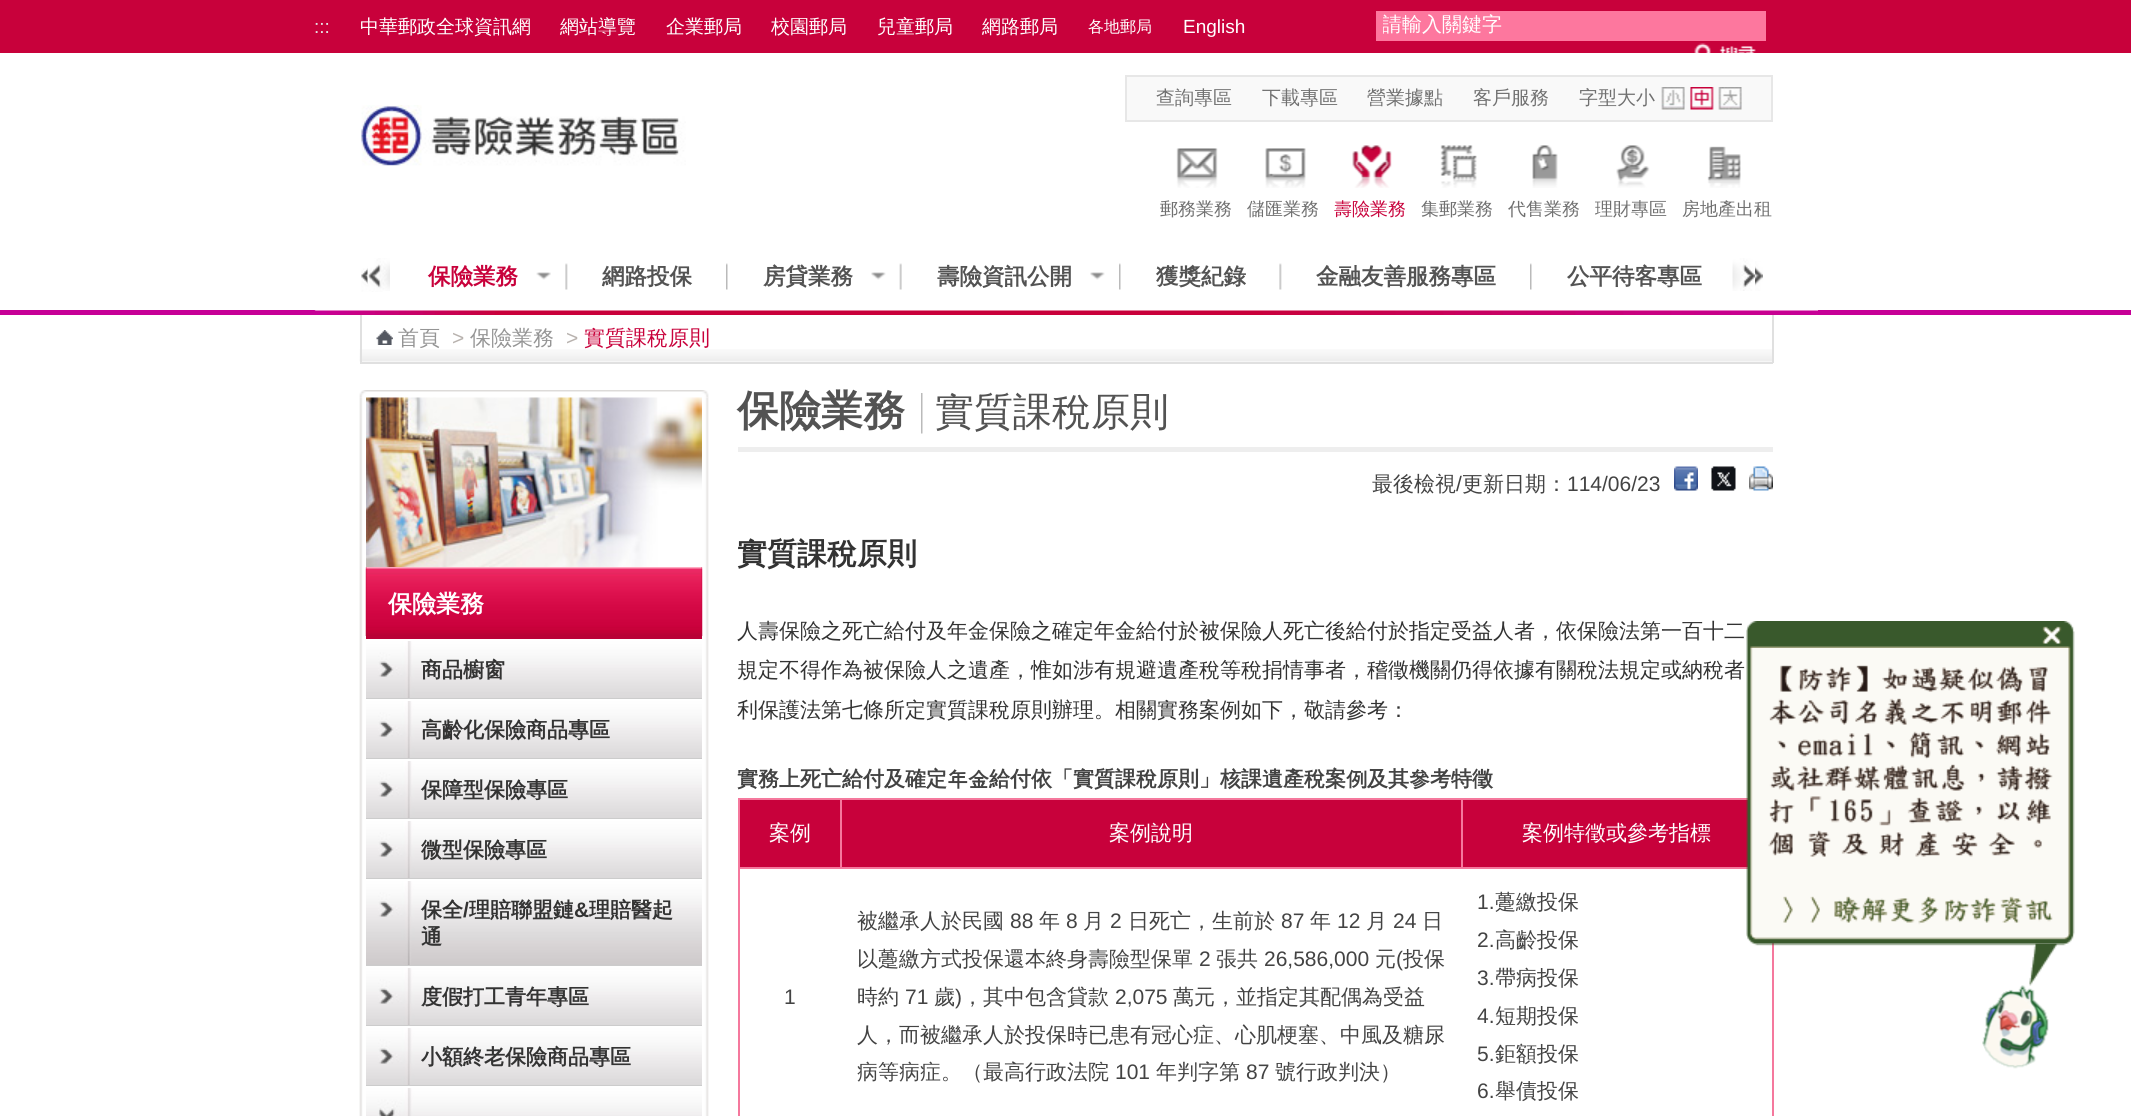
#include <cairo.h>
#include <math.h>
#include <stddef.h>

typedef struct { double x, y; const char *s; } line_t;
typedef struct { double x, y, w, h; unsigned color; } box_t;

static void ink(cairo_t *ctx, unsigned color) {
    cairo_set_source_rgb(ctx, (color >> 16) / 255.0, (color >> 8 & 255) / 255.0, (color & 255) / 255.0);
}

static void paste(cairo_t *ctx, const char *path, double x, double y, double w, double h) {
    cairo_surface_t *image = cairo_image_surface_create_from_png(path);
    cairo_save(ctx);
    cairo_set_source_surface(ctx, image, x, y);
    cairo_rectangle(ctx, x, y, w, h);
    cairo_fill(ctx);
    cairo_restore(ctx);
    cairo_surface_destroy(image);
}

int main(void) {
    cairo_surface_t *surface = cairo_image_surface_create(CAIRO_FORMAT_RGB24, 2131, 1116);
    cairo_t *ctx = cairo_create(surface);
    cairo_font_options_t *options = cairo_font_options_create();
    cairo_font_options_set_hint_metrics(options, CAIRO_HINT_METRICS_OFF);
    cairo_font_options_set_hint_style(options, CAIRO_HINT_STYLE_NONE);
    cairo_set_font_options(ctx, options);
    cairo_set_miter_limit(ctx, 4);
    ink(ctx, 0xFFFFFF);
    cairo_paint(ctx);
    ink(ctx, 0xC8013B);
    cairo_rectangle(ctx, 0, 0, 2131, 53);
    cairo_fill(ctx);
    cairo_select_font_face(ctx, "Liberation Sans", CAIRO_FONT_SLANT_NORMAL, CAIRO_FONT_WEIGHT_NORMAL);
    cairo_set_font_size(ctx, 19);
    ink(ctx, 0xE5E5E5);
    cairo_move_to(ctx, 314, 33);
    cairo_show_text(ctx, ":::");
    cairo_select_font_face(ctx, "WenQuanYi Zen Hei Medium", CAIRO_FONT_SLANT_NORMAL, CAIRO_FONT_WEIGHT_NORMAL);
    ink(ctx, 0xFFFFFF);
    {
        static const line_t items[] = {
            {360, 33, "中華郵政全球資訊網"},
            {560, 33, "網站導覽"},
            {666, 33, "企業郵局"},
            {771, 33, "校園郵局"},
            {877, 33, "兒童郵局"},
            {982, 33, "網路郵局"},
        };
        for (size_t i = 0; i < sizeof items / sizeof *items; i++) {
            cairo_move_to(ctx, items[i].x, items[i].y);
            cairo_show_text(ctx, items[i].s);
        }
    }
    cairo_set_font_size(ctx, 16);
    cairo_move_to(ctx, 1088, 32);
    cairo_show_text(ctx, "各地郵局");
    cairo_select_font_face(ctx, "Liberation Sans", CAIRO_FONT_SLANT_NORMAL, CAIRO_FONT_WEIGHT_NORMAL);
    cairo_set_font_size(ctx, 19);
    cairo_move_to(ctx, 1183, 33);
    cairo_show_text(ctx, "English");
    ink(ctx, 0xFD779E);
    cairo_rectangle(ctx, 1376, 11, 390, 30);
    cairo_fill(ctx);
    cairo_save(ctx);
    cairo_rectangle(ctx, 1383, 12, 314, 27);
    cairo_clip(ctx);
    cairo_select_font_face(ctx, "WenQuanYi Zen Hei Medium", CAIRO_FONT_SLANT_NORMAL, CAIRO_FONT_WEIGHT_NORMAL);
    cairo_set_font_size(ctx, 20);
    ink(ctx, 0xFFFFFF);
    cairo_move_to(ctx, 1382, 31);
    cairo_show_text(ctx, "請輸入關鍵字");
    cairo_restore(ctx);
    paste(ctx, "media/1.png", 1694, 43, 62, 10);
    ink(ctx, 0xF9F9F9);
    cairo_rectangle(ctx, 1126, 76, 646, 45);
    cairo_fill_preserve(ctx);
    ink(ctx, 0xE7E7E7);
    cairo_stroke(ctx);
    cairo_select_font_face(ctx, "WenQuanYi Zen Hei Medium", CAIRO_FONT_SLANT_NORMAL, CAIRO_FONT_WEIGHT_NORMAL);
    ink(ctx, 0x707070);
    {
        static const line_t items[] = {
            {1156, 104, "查詢專區"},
            {1262, 104, "下載專區"},
            {1367, 104, "營業據點"},
            {1473, 104, "客戶服務"},
            {1579, 104, "字型大小"},
        };
        for (size_t i = 0; i < sizeof items / sizeof *items; i++) {
            cairo_move_to(ctx, items[i].x, items[i].y);
            cairo_show_text(ctx, items[i].s);
        }
    }
    paste(ctx, "media/2.png", 1661, 87, 24, 23);
    paste(ctx, "media/3.png", 1690, 87, 24, 23);
    paste(ctx, "media/4.png", 1718, 87, 24, 23);
    paste(ctx, "media/5.png", 361, 105, 325, 61);
    paste(ctx, "media/6.png", 1176, 148, 42, 40);
    cairo_set_font_size(ctx, 18);
    cairo_move_to(ctx, 1160, 215);
    cairo_show_text(ctx, "郵務業務");
    paste(ctx, "media/7.png", 1265, 148, 41, 40);
    cairo_move_to(ctx, 1247, 215);
    cairo_show_text(ctx, "儲匯業務");
    paste(ctx, "media/8.png", 1352, 145, 40, 43);
    ink(ctx, 0xC8013B);
    cairo_move_to(ctx, 1334, 215);
    cairo_show_text(ctx, "壽險業務");
    paste(ctx, "media/9.png", 1440, 145, 37, 43);
    ink(ctx, 0x707070);
    cairo_move_to(ctx, 1421, 215);
    cairo_show_text(ctx, "集郵業務");
    paste(ctx, "media/10.png", 1532, 145, 26, 43);
    cairo_move_to(ctx, 1508, 215);
    cairo_show_text(ctx, "代售業務");
    paste(ctx, "media/11.png", 1616, 145, 34, 43);
    cairo_move_to(ctx, 1595, 215);
    cairo_show_text(ctx, "理財專區");
    paste(ctx, "media/12.png", 1707, 146, 34, 42);
    cairo_move_to(ctx, 1682, 215);
    cairo_show_text(ctx, "房地產出租");
    ink(ctx, 0xC60096);
    cairo_rectangle(ctx, 0, 310, 2131, 5);
    cairo_fill(ctx);
    paste(ctx, "media/13.png", 314, 310, 1504, 5);
    paste(ctx, "media/14.png", 361, 258, 22, 34);
    paste(ctx, "media/15.png", 367, 258, 23, 33);
    paste(ctx, "media/16.png", 536, 272, 15, 8);
    cairo_select_font_face(ctx, "WenQuanYi Zen Hei", CAIRO_FONT_SLANT_NORMAL, CAIRO_FONT_WEIGHT_BOLD);
    cairo_set_font_size(ctx, 22.5);
    ink(ctx, 0xC8013B);
    cairo_move_to(ctx, 428, 284);
    cairo_show_text(ctx, "保險業務");
    paste(ctx, "media/17.png", 565, 263, 3, 27);
    ink(ctx, 0x535353);
    cairo_move_to(ctx, 602, 284);
    cairo_show_text(ctx, "網路投保");
    paste(ctx, "media/18.png", 726, 263, 2, 27);
    paste(ctx, "media/19.png", 871, 272, 15, 8);
    cairo_move_to(ctx, 763, 284);
    cairo_show_text(ctx, "房貸業務");
    paste(ctx, "media/20.png", 899, 263, 3, 27);
    paste(ctx, "media/19.png", 1090, 272, 15, 8);
    cairo_move_to(ctx, 937, 284);
    cairo_show_text(ctx, "壽險資訊公開");
    paste(ctx, "media/18.png", 1119, 263, 2, 27);
    cairo_move_to(ctx, 1156, 284);
    cairo_show_text(ctx, "獲獎紀錄");
    paste(ctx, "media/17.png", 1279, 263, 3, 27);
    cairo_move_to(ctx, 1316, 284);
    cairo_show_text(ctx, "金融友善服務專區");
    paste(ctx, "media/18.png", 1530, 263, 2, 27);
    cairo_move_to(ctx, 1567, 284);
    cairo_show_text(ctx, "公平待客專區");
    paste(ctx, "media/21.png", 1755, 261, 8, 30);
    paste(ctx, "media/22.png", 1732, 258, 23, 33);
    paste(ctx, "media/23.png", 359, 349, 1413, 13);
    {
        static const box_t items[] = {
            {1772, 315, 2, 48, 0xE0E0E0},
            {360, 362, 1413, 2, 0xE0E0E0},
            {360, 315, 2, 48, 0xE0E0E0},
        };
        for (size_t i = 0; i < sizeof items / sizeof *items; i++) {
            ink(ctx, items[i].color);
            cairo_rectangle(ctx, items[i].x, items[i].y, items[i].w, items[i].h);
            cairo_fill(ctx);
        }
    }
    paste(ctx, "media/24.png", 376, 330, 17, 15);
    cairo_select_font_face(ctx, "WenQuanYi Zen Hei Medium", CAIRO_FONT_SLANT_NORMAL, CAIRO_FONT_WEIGHT_NORMAL);
    cairo_set_font_size(ctx, 21);
    ink(ctx, 0x959595);
    cairo_move_to(ctx, 398, 345);
    cairo_show_text(ctx, "首頁");
    cairo_select_font_face(ctx, "Liberation Sans", CAIRO_FONT_SLANT_NORMAL, CAIRO_FONT_WEIGHT_NORMAL);
    ink(ctx, 0xB8B2AE);
    cairo_move_to(ctx, 452, 345);
    cairo_show_text(ctx, ">");
    cairo_select_font_face(ctx, "WenQuanYi Zen Hei Medium", CAIRO_FONT_SLANT_NORMAL, CAIRO_FONT_WEIGHT_NORMAL);
    ink(ctx, 0x959595);
    cairo_move_to(ctx, 470, 345);
    cairo_show_text(ctx, "保險業務");
    cairo_select_font_face(ctx, "Liberation Sans", CAIRO_FONT_SLANT_NORMAL, CAIRO_FONT_WEIGHT_NORMAL);
    ink(ctx, 0xB8B2AE);
    cairo_move_to(ctx, 566, 345);
    cairo_show_text(ctx, ">");
    cairo_select_font_face(ctx, "WenQuanYi Zen Hei Medium", CAIRO_FONT_SLANT_NORMAL, CAIRO_FONT_WEIGHT_NORMAL);
    ink(ctx, 0xC8013B);
    cairo_move_to(ctx, 584, 345);
    cairo_show_text(ctx, "實質課稅原則");
    paste(ctx, "media/25.png", 359, 390, 350, 8);
    paste(ctx, "media/26.png", 359, 397, 350, 719);
    paste(ctx, "media/27.png", 366, 397, 336, 170);
    ink(ctx, 0xB90137);
    cairo_rectangle(ctx, 366, 567, 336, 72);
    cairo_fill(ctx);
    paste(ctx, "media/28.png", 365, 567, 338, 69);
    cairo_select_font_face(ctx, "WenQuanYi Zen Hei", CAIRO_FONT_SLANT_NORMAL, CAIRO_FONT_WEIGHT_BOLD);
    cairo_set_font_size(ctx, 24);
    ink(ctx, 0xFFFFFF);
    cairo_move_to(ctx, 388, 612);
    cairo_show_text(ctx, "保險業務");
    paste(ctx, "media/29.png", 366, 641, 336, 57);
    ink(ctx, 0xCCCCCC);
    cairo_rectangle(ctx, 366, 698, 336, 1);
    cairo_fill(ctx);
    cairo_set_font_size(ctx, 21);
    ink(ctx, 0x333333);
    cairo_move_to(ctx, 421, 677);
    cairo_show_text(ctx, "商品櫥窗");
    paste(ctx, "media/29.png", 366, 701, 336, 57);
    ink(ctx, 0xCCCCCC);
    cairo_rectangle(ctx, 366, 758, 336, 1);
    cairo_fill(ctx);
    ink(ctx, 0x333333);
    cairo_move_to(ctx, 421, 737);
    cairo_show_text(ctx, "高齡化保險商品專區");
    paste(ctx, "media/29.png", 366, 761, 336, 57);
    ink(ctx, 0xCCCCCC);
    cairo_rectangle(ctx, 366, 818, 336, 1);
    cairo_fill(ctx);
    ink(ctx, 0x333333);
    cairo_move_to(ctx, 421, 797);
    cairo_show_text(ctx, "保障型保險專區");
    paste(ctx, "media/29.png", 366, 821, 336, 57);
    ink(ctx, 0xCCCCCC);
    cairo_rectangle(ctx, 366, 878, 336, 1);
    cairo_fill(ctx);
    ink(ctx, 0x333333);
    cairo_move_to(ctx, 421, 857);
    cairo_show_text(ctx, "微型保險專區");
    paste(ctx, "media/30.png", 366, 881, 336, 84);
    ink(ctx, 0xCCCCCC);
    cairo_rectangle(ctx, 366, 965, 336, 1);
    cairo_fill(ctx);
    ink(ctx, 0x333333);
    cairo_move_to(ctx, 421, 917);
    cairo_show_text(ctx, "保全");
    cairo_select_font_face(ctx, "Liberation Sans", CAIRO_FONT_SLANT_NORMAL, CAIRO_FONT_WEIGHT_BOLD);
    cairo_move_to(ctx, 463, 917);
    cairo_show_text(ctx, "/");
    cairo_select_font_face(ctx, "WenQuanYi Zen Hei", CAIRO_FONT_SLANT_NORMAL, CAIRO_FONT_WEIGHT_BOLD);
    cairo_move_to(ctx, 469, 917);
    cairo_show_text(ctx, "理賠聯盟鏈");
    cairo_select_font_face(ctx, "Liberation Sans", CAIRO_FONT_SLANT_NORMAL, CAIRO_FONT_WEIGHT_BOLD);
    cairo_move_to(ctx, 574, 917);
    cairo_show_text(ctx, "&");
    cairo_select_font_face(ctx, "WenQuanYi Zen Hei", CAIRO_FONT_SLANT_NORMAL, CAIRO_FONT_WEIGHT_BOLD);
    cairo_move_to(ctx, 589, 917);
    cairo_show_text(ctx, "理賠醫起");
    cairo_move_to(ctx, 421, 944);
    cairo_show_text(ctx, "通");
    paste(ctx, "media/29.png", 366, 968, 336, 57);
    ink(ctx, 0xCCCCCC);
    cairo_rectangle(ctx, 366, 1025, 336, 1);
    cairo_fill(ctx);
    ink(ctx, 0x333333);
    cairo_move_to(ctx, 421, 1004);
    cairo_show_text(ctx, "度假打工青年專區");
    paste(ctx, "media/29.png", 366, 1028, 336, 57);
    ink(ctx, 0xCCCCCC);
    cairo_rectangle(ctx, 366, 1085, 336, 1);
    cairo_fill(ctx);
    ink(ctx, 0x333333);
    cairo_move_to(ctx, 421, 1064);
    cairo_show_text(ctx, "小額終老保險商品專區");
    paste(ctx, "media/31.png", 366, 1088, 336, 28);
    ink(ctx, 0xEEEEEE);
    cairo_rectangle(ctx, 738, 447, 1035, 5);
    cairo_fill(ctx);
    cairo_set_font_size(ctx, 42);
    ink(ctx, 0x535353);
    cairo_move_to(ctx, 737, 425);
    cairo_show_text(ctx, "保險業務");
    paste(ctx, "media/32.png", 921, 393, 2, 41);
    cairo_select_font_face(ctx, "WenQuanYi Zen Hei Medium", CAIRO_FONT_SLANT_NORMAL, CAIRO_FONT_WEIGHT_NORMAL);
    cairo_set_font_size(ctx, 39);
    cairo_move_to(ctx, 935, 425);
    cairo_show_text(ctx, "實質課稅原則");
    cairo_set_font_size(ctx, 21);
    ink(ctx, 0x434343);
    cairo_move_to(ctx, 1372, 491);
    cairo_show_text(ctx, "最後檢視");
    cairo_select_font_face(ctx, "Liberation Sans", CAIRO_FONT_SLANT_NORMAL, CAIRO_FONT_WEIGHT_NORMAL);
    cairo_move_to(ctx, 1456, 491);
    cairo_show_text(ctx, "/");
    cairo_select_font_face(ctx, "WenQuanYi Zen Hei Medium", CAIRO_FONT_SLANT_NORMAL, CAIRO_FONT_WEIGHT_NORMAL);
    cairo_move_to(ctx, 1462, 491);
    cairo_show_text(ctx, "更新日期：");
    cairo_select_font_face(ctx, "Liberation Sans", CAIRO_FONT_SLANT_NORMAL, CAIRO_FONT_WEIGHT_NORMAL);
    cairo_move_to(ctx, 1567, 491);
    cairo_show_text(ctx, "114/06/23");
    paste(ctx, "media/33.png", 1674, 466, 24, 25);
    paste(ctx, "media/34.png", 1711, 466, 25, 25);
    paste(ctx, "media/35.png", 1749, 466, 24, 25);
    cairo_select_font_face(ctx, "WenQuanYi Zen Hei", CAIRO_FONT_SLANT_NORMAL, CAIRO_FONT_WEIGHT_BOLD);
    cairo_set_font_size(ctx, 30);
    ink(ctx, 0x333333);
    cairo_move_to(ctx, 737, 564);
    cairo_show_text(ctx, "實質課稅原則");
    cairo_select_font_face(ctx, "WenQuanYi Zen Hei Medium", CAIRO_FONT_SLANT_NORMAL, CAIRO_FONT_WEIGHT_NORMAL);
    cairo_set_font_size(ctx, 21);
    {
        static const line_t items[] = {
            {737, 638, "人壽保險之死亡給付及年金保險之確定年金給付於被保險人死亡後給付於指定受益人者，依保險法第一百十二"},
            {737, 677, "規定不得作為被保險人之遺產，惟如涉有規避遺產稅等稅捐情事者，稽徵機關仍得依據有關稅法規定或納稅者"},
            {737, 717, "利保護法第七條所定實質課稅原則辦理。相關實務案例如下，敬請參考："},
        };
        for (size_t i = 0; i < sizeof items / sizeof *items; i++) {
            cairo_move_to(ctx, items[i].x, items[i].y);
            cairo_show_text(ctx, items[i].s);
        }
    }
    cairo_select_font_face(ctx, "WenQuanYi Zen Hei", CAIRO_FONT_SLANT_NORMAL, CAIRO_FONT_WEIGHT_BOLD);
    ink(ctx, 0x434343);
    cairo_move_to(ctx, 737, 786);
    cairo_show_text(ctx, "實務上死亡給付及確定年金給付依「實質課稅原則」核課遺產稅案例及其參考特徵");
    {
        static const box_t items[] = {
            {738, 798, 1010, 2, 0xF5789D},
            {1772, 943, 2, 173, 0xF5789D},
            {738, 798, 2, 318, 0xF5789D},
            {740, 800, 100, 67, 0xC8013B},
            {1461, 867, 287, 2, 0xF5789D},
            {1461, 798, 2, 71, 0xF5789D},
            {840, 867, 623, 2, 0xF5789D},
            {840, 798, 2, 71, 0xF5789D},
            {738, 867, 104, 2, 0xF5789D},
        };
        for (size_t i = 0; i < sizeof items / sizeof *items; i++) {
            ink(ctx, items[i].color);
            cairo_rectangle(ctx, items[i].x, items[i].y, items[i].w, items[i].h);
            cairo_fill(ctx);
        }
    }
    cairo_select_font_face(ctx, "WenQuanYi Zen Hei Medium", CAIRO_FONT_SLANT_NORMAL, CAIRO_FONT_WEIGHT_NORMAL);
    ink(ctx, 0xFFFFFF);
    cairo_move_to(ctx, 769, 840);
    cairo_show_text(ctx, "案例");
    ink(ctx, 0xC8013B);
    cairo_rectangle(ctx, 842, 800, 619, 67);
    cairo_fill(ctx);
    ink(ctx, 0xFFFFFF);
    cairo_move_to(ctx, 1109, 840);
    cairo_show_text(ctx, "案例說明");
    ink(ctx, 0xC8013B);
    cairo_rectangle(ctx, 1463, 800, 285, 67);
    cairo_fill(ctx);
    ink(ctx, 0xFFFFFF);
    cairo_move_to(ctx, 1522, 840);
    cairo_show_text(ctx, "案例特徵或參考指標");
    cairo_select_font_face(ctx, "Liberation Sans", CAIRO_FONT_SLANT_NORMAL, CAIRO_FONT_WEIGHT_NORMAL);
    ink(ctx, 0x434343);
    cairo_move_to(ctx, 784, 1004);
    cairo_show_text(ctx, "1");
    cairo_select_font_face(ctx, "WenQuanYi Zen Hei Medium", CAIRO_FONT_SLANT_NORMAL, CAIRO_FONT_WEIGHT_NORMAL);
    cairo_move_to(ctx, 857, 928);
    cairo_show_text(ctx, "被繼承人於民國");
    cairo_select_font_face(ctx, "Liberation Sans", CAIRO_FONT_SLANT_NORMAL, CAIRO_FONT_WEIGHT_NORMAL);
    cairo_move_to(ctx, 1010, 928);
    cairo_show_text(ctx, "88");
    cairo_select_font_face(ctx, "WenQuanYi Zen Hei Medium", CAIRO_FONT_SLANT_NORMAL, CAIRO_FONT_WEIGHT_NORMAL);
    cairo_move_to(ctx, 1039, 928);
    cairo_show_text(ctx, "年");
    cairo_select_font_face(ctx, "Liberation Sans", CAIRO_FONT_SLANT_NORMAL, CAIRO_FONT_WEIGHT_NORMAL);
    cairo_move_to(ctx, 1066, 928);
    cairo_show_text(ctx, "8");
    cairo_select_font_face(ctx, "WenQuanYi Zen Hei Medium", CAIRO_FONT_SLANT_NORMAL, CAIRO_FONT_WEIGHT_NORMAL);
    cairo_move_to(ctx, 1083, 928);
    cairo_show_text(ctx, "月");
    cairo_select_font_face(ctx, "Liberation Sans", CAIRO_FONT_SLANT_NORMAL, CAIRO_FONT_WEIGHT_NORMAL);
    cairo_move_to(ctx, 1110, 928);
    cairo_show_text(ctx, "2");
    cairo_select_font_face(ctx, "WenQuanYi Zen Hei Medium", CAIRO_FONT_SLANT_NORMAL, CAIRO_FONT_WEIGHT_NORMAL);
    cairo_move_to(ctx, 1128, 928);
    cairo_show_text(ctx, "日死亡，生前於");
    cairo_select_font_face(ctx, "Liberation Sans", CAIRO_FONT_SLANT_NORMAL, CAIRO_FONT_WEIGHT_NORMAL);
    cairo_move_to(ctx, 1281, 928);
    cairo_show_text(ctx, "87");
    cairo_select_font_face(ctx, "WenQuanYi Zen Hei Medium", CAIRO_FONT_SLANT_NORMAL, CAIRO_FONT_WEIGHT_NORMAL);
    cairo_move_to(ctx, 1310, 928);
    cairo_show_text(ctx, "年");
    cairo_select_font_face(ctx, "Liberation Sans", CAIRO_FONT_SLANT_NORMAL, CAIRO_FONT_WEIGHT_NORMAL);
    cairo_move_to(ctx, 1337, 928);
    cairo_show_text(ctx, "12");
    cairo_select_font_face(ctx, "WenQuanYi Zen Hei Medium", CAIRO_FONT_SLANT_NORMAL, CAIRO_FONT_WEIGHT_NORMAL);
    cairo_move_to(ctx, 1366, 928);
    cairo_show_text(ctx, "月");
    cairo_select_font_face(ctx, "Liberation Sans", CAIRO_FONT_SLANT_NORMAL, CAIRO_FONT_WEIGHT_NORMAL);
    cairo_move_to(ctx, 1393, 928);
    cairo_show_text(ctx, "24");
    cairo_select_font_face(ctx, "WenQuanYi Zen Hei Medium", CAIRO_FONT_SLANT_NORMAL, CAIRO_FONT_WEIGHT_NORMAL);
    cairo_move_to(ctx, 1422, 928);
    cairo_show_text(ctx, "日");
    cairo_move_to(ctx, 857, 966);
    cairo_show_text(ctx, "以躉繳方式投保還本終身壽險型保單");
    cairo_select_font_face(ctx, "Liberation Sans", CAIRO_FONT_SLANT_NORMAL, CAIRO_FONT_WEIGHT_NORMAL);
    cairo_move_to(ctx, 1199, 966);
    cairo_show_text(ctx, "2");
    cairo_select_font_face(ctx, "WenQuanYi Zen Hei Medium", CAIRO_FONT_SLANT_NORMAL, CAIRO_FONT_WEIGHT_NORMAL);
    cairo_move_to(ctx, 1216, 966);
    cairo_show_text(ctx, "張共");
    cairo_select_font_face(ctx, "Liberation Sans", CAIRO_FONT_SLANT_NORMAL, CAIRO_FONT_WEIGHT_NORMAL);
    cairo_move_to(ctx, 1264, 966);
    cairo_show_text(ctx, "26,586,000");
    cairo_select_font_face(ctx, "WenQuanYi Zen Hei Medium", CAIRO_FONT_SLANT_NORMAL, CAIRO_FONT_WEIGHT_NORMAL);
    cairo_move_to(ctx, 1375, 966);
    cairo_show_text(ctx, "元");
    cairo_select_font_face(ctx, "Liberation Sans", CAIRO_FONT_SLANT_NORMAL, CAIRO_FONT_WEIGHT_NORMAL);
    cairo_move_to(ctx, 1396, 966);
    cairo_show_text(ctx, "(");
    cairo_select_font_face(ctx, "WenQuanYi Zen Hei Medium", CAIRO_FONT_SLANT_NORMAL, CAIRO_FONT_WEIGHT_NORMAL);
    cairo_move_to(ctx, 1403, 966);
    cairo_show_text(ctx, "投保");
    cairo_move_to(ctx, 857, 1004);
    cairo_show_text(ctx, "時約");
    cairo_select_font_face(ctx, "Liberation Sans", CAIRO_FONT_SLANT_NORMAL, CAIRO_FONT_WEIGHT_NORMAL);
    cairo_move_to(ctx, 905, 1004);
    cairo_show_text(ctx, "71");
    cairo_select_font_face(ctx, "WenQuanYi Zen Hei Medium", CAIRO_FONT_SLANT_NORMAL, CAIRO_FONT_WEIGHT_NORMAL);
    cairo_move_to(ctx, 934, 1004);
    cairo_show_text(ctx, "歲");
    cairo_select_font_face(ctx, "Liberation Sans", CAIRO_FONT_SLANT_NORMAL, CAIRO_FONT_WEIGHT_NORMAL);
    cairo_move_to(ctx, 955, 1004);
    cairo_show_text(ctx, ")");
    cairo_select_font_face(ctx, "WenQuanYi Zen Hei Medium", CAIRO_FONT_SLANT_NORMAL, CAIRO_FONT_WEIGHT_NORMAL);
    cairo_move_to(ctx, 962, 1004);
    cairo_show_text(ctx, "，其中包含貸款");
    cairo_select_font_face(ctx, "Liberation Sans", CAIRO_FONT_SLANT_NORMAL, CAIRO_FONT_WEIGHT_NORMAL);
    cairo_move_to(ctx, 1115, 1004);
    cairo_show_text(ctx, "2,075");
    cairo_select_font_face(ctx, "WenQuanYi Zen Hei Medium", CAIRO_FONT_SLANT_NORMAL, CAIRO_FONT_WEIGHT_NORMAL);
    {
        static const line_t items[] = {
            {1173, 1004, "萬元，並指定其配偶為受益"},
            {857, 1042, "人，而被繼承人於投保時已患有冠心症、心肌梗塞、中風及糖尿"},
            {857, 1079, "病等病症。（最高行政法院"},
        };
        for (size_t i = 0; i < sizeof items / sizeof *items; i++) {
            cairo_move_to(ctx, items[i].x, items[i].y);
            cairo_show_text(ctx, items[i].s);
        }
    }
    cairo_select_font_face(ctx, "Liberation Sans", CAIRO_FONT_SLANT_NORMAL, CAIRO_FONT_WEIGHT_NORMAL);
    cairo_move_to(ctx, 1115, 1079);
    cairo_show_text(ctx, "101");
    cairo_select_font_face(ctx, "WenQuanYi Zen Hei Medium", CAIRO_FONT_SLANT_NORMAL, CAIRO_FONT_WEIGHT_NORMAL);
    cairo_move_to(ctx, 1156, 1079);
    cairo_show_text(ctx, "年判字第");
    cairo_select_font_face(ctx, "Liberation Sans", CAIRO_FONT_SLANT_NORMAL, CAIRO_FONT_WEIGHT_NORMAL);
    cairo_move_to(ctx, 1246, 1079);
    cairo_show_text(ctx, "87");
    cairo_select_font_face(ctx, "WenQuanYi Zen Hei Medium", CAIRO_FONT_SLANT_NORMAL, CAIRO_FONT_WEIGHT_NORMAL);
    cairo_move_to(ctx, 1275, 1079);
    cairo_show_text(ctx, "號行政判決）");
    cairo_select_font_face(ctx, "Liberation Sans", CAIRO_FONT_SLANT_NORMAL, CAIRO_FONT_WEIGHT_NORMAL);
    cairo_move_to(ctx, 1477, 909);
    cairo_show_text(ctx, "1.");
    cairo_select_font_face(ctx, "WenQuanYi Zen Hei Medium", CAIRO_FONT_SLANT_NORMAL, CAIRO_FONT_WEIGHT_NORMAL);
    cairo_move_to(ctx, 1495, 909);
    cairo_show_text(ctx, "躉繳投保");
    cairo_select_font_face(ctx, "Liberation Sans", CAIRO_FONT_SLANT_NORMAL, CAIRO_FONT_WEIGHT_NORMAL);
    cairo_move_to(ctx, 1477, 947);
    cairo_show_text(ctx, "2.");
    cairo_select_font_face(ctx, "WenQuanYi Zen Hei Medium", CAIRO_FONT_SLANT_NORMAL, CAIRO_FONT_WEIGHT_NORMAL);
    cairo_move_to(ctx, 1495, 947);
    cairo_show_text(ctx, "高齡投保");
    cairo_select_font_face(ctx, "Liberation Sans", CAIRO_FONT_SLANT_NORMAL, CAIRO_FONT_WEIGHT_NORMAL);
    cairo_move_to(ctx, 1477, 985);
    cairo_show_text(ctx, "3.");
    cairo_select_font_face(ctx, "WenQuanYi Zen Hei Medium", CAIRO_FONT_SLANT_NORMAL, CAIRO_FONT_WEIGHT_NORMAL);
    cairo_move_to(ctx, 1495, 985);
    cairo_show_text(ctx, "帶病投保");
    cairo_select_font_face(ctx, "Liberation Sans", CAIRO_FONT_SLANT_NORMAL, CAIRO_FONT_WEIGHT_NORMAL);
    cairo_move_to(ctx, 1477, 1023);
    cairo_show_text(ctx, "4.");
    cairo_select_font_face(ctx, "WenQuanYi Zen Hei Medium", CAIRO_FONT_SLANT_NORMAL, CAIRO_FONT_WEIGHT_NORMAL);
    cairo_move_to(ctx, 1495, 1023);
    cairo_show_text(ctx, "短期投保");
    cairo_select_font_face(ctx, "Liberation Sans", CAIRO_FONT_SLANT_NORMAL, CAIRO_FONT_WEIGHT_NORMAL);
    cairo_move_to(ctx, 1477, 1061);
    cairo_show_text(ctx, "5.");
    cairo_select_font_face(ctx, "WenQuanYi Zen Hei Medium", CAIRO_FONT_SLANT_NORMAL, CAIRO_FONT_WEIGHT_NORMAL);
    cairo_move_to(ctx, 1495, 1061);
    cairo_show_text(ctx, "鉅額投保");
    cairo_select_font_face(ctx, "Liberation Sans", CAIRO_FONT_SLANT_NORMAL, CAIRO_FONT_WEIGHT_NORMAL);
    cairo_move_to(ctx, 1477, 1098);
    cairo_show_text(ctx, "6.");
    cairo_select_font_face(ctx, "WenQuanYi Zen Hei Medium", CAIRO_FONT_SLANT_NORMAL, CAIRO_FONT_WEIGHT_NORMAL);
    cairo_move_to(ctx, 1495, 1098);
    cairo_show_text(ctx, "舉債投保");
    paste(ctx, "media/36.png", 1746, 621, 329, 27);
    paste(ctx, "media/37.png", 1746, 648, 329, 234);
    paste(ctx, "media/38.png", 1746, 882, 329, 62);
    paste(ctx, "media/40.png", 1982, 985, 67, 84);
    paste(ctx, "media/39.png", 1753, 943, 313, 43);
    cairo_surface_write_to_png(surface, "image.png");
    cairo_font_options_destroy(options);
    cairo_destroy(ctx);
    cairo_surface_destroy(surface);
    return 0;
}
